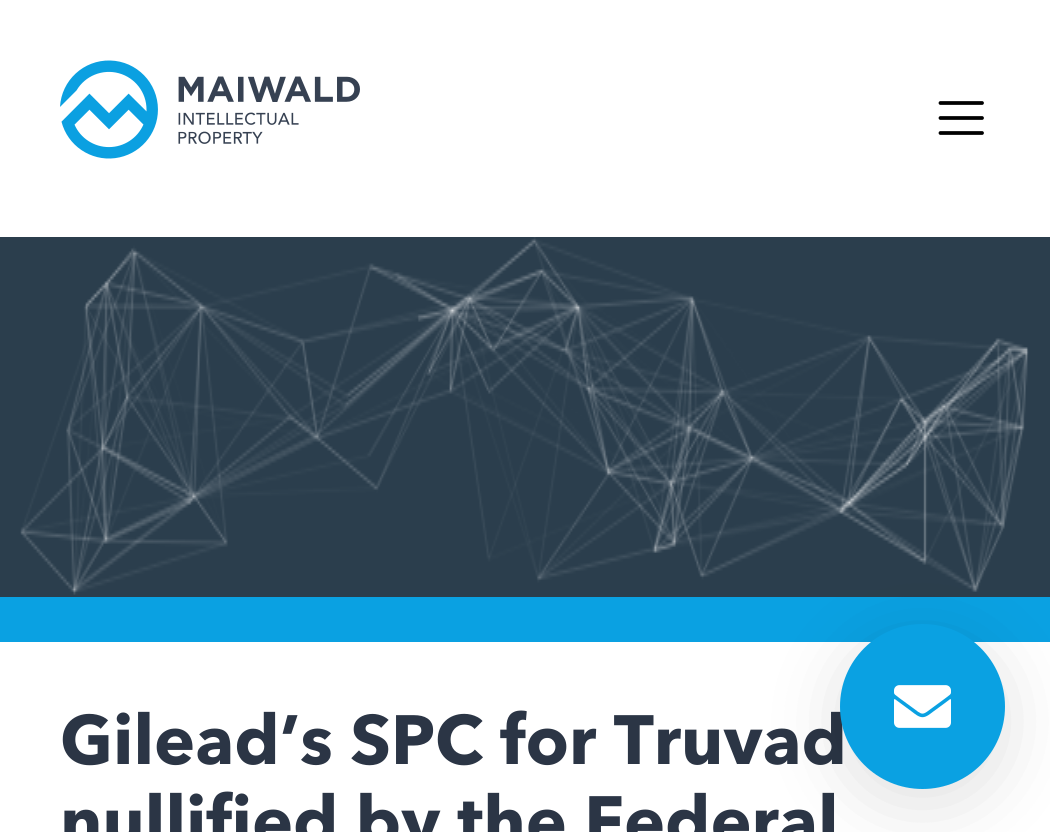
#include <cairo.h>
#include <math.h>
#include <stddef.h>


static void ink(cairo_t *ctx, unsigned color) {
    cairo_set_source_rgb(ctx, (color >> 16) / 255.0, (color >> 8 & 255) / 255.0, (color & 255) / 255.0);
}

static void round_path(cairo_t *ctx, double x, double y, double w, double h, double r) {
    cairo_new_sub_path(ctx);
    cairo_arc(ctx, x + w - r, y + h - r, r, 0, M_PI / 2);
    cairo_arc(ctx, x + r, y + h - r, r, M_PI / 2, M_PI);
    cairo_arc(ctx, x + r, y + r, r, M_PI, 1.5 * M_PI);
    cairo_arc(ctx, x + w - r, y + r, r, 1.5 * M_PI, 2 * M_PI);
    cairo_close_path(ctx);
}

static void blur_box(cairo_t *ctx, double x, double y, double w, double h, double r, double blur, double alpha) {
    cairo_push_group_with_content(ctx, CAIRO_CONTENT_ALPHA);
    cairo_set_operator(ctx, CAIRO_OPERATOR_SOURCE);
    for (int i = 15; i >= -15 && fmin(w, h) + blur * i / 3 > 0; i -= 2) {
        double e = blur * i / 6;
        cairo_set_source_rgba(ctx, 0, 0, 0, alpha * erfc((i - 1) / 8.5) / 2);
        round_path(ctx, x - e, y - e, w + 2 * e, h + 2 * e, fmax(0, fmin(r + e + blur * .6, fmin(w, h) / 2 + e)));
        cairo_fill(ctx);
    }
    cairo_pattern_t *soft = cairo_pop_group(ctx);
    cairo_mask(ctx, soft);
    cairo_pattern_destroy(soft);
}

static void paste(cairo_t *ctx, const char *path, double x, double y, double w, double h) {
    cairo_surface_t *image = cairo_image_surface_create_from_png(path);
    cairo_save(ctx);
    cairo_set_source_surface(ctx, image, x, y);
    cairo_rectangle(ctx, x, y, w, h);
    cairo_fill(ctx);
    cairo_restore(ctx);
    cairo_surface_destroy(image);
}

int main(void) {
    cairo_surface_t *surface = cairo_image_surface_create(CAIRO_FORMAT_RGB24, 1050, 832);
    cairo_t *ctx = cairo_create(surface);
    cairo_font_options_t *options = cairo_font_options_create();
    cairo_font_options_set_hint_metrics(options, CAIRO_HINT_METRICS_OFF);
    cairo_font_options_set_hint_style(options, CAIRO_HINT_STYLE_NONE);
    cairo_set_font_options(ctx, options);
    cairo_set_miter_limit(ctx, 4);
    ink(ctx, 0xFFFFFF);
    cairo_paint(ctx);
    paste(ctx, "media/1.png", 60, 60, 300, 99);
    cairo_new_path(ctx);
    cairo_move_to(ctx, 940.5, 103);
    cairo_line_to(ctx, 982, 103);
    cairo_move_to(ctx, 940.5, 118);
    cairo_line_to(ctx, 982, 118);
    cairo_move_to(ctx, 940.5, 133);
    cairo_line_to(ctx, 982, 133);
    ink(ctx, 0x000000);
    cairo_set_line_width(ctx, 3.8);
    cairo_set_line_cap(ctx, CAIRO_LINE_CAP_ROUND);
    cairo_stroke(ctx);
    ink(ctx, 0x2B3E4D);
    cairo_rectangle(ctx, 0, 237, 1050, 360);
    cairo_fill(ctx);
    ink(ctx, 0x0AA1E2);
    cairo_rectangle(ctx, 0, 597, 1050, 45);
    cairo_fill(ctx);
    paste(ctx, "media/2.png", 20, 237, 1009, 358);
    cairo_select_font_face(ctx, "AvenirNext", CAIRO_FONT_SLANT_NORMAL, CAIRO_FONT_WEIGHT_BOLD);
    cairo_set_font_size(ctx, 69);
    ink(ctx, 0x2B3545);
    cairo_move_to(ctx, 60, 764);
    cairo_show_text(ctx, "Gilead’s SPC for Truvad");
    cairo_move_to(ctx, 60, 845);
    cairo_show_text(ctx, "nullified by the Federal");
    ink(ctx, 0x000000);
    blur_box(ctx, 840, 639, 165, 165, 82.5, 37.5, 0.12);
    ink(ctx, 0x0AA1E2);
    cairo_arc(ctx, 922.5, 706.5, 82.5, 0, 2 * M_PI);
    cairo_fill(ctx);
    paste(ctx, "media/3.png", 894, 685, 57, 43);
    cairo_surface_write_to_png(surface, "image.png");
    cairo_font_options_destroy(options);
    cairo_destroy(ctx);
    cairo_surface_destroy(surface);
    return 0;
}
